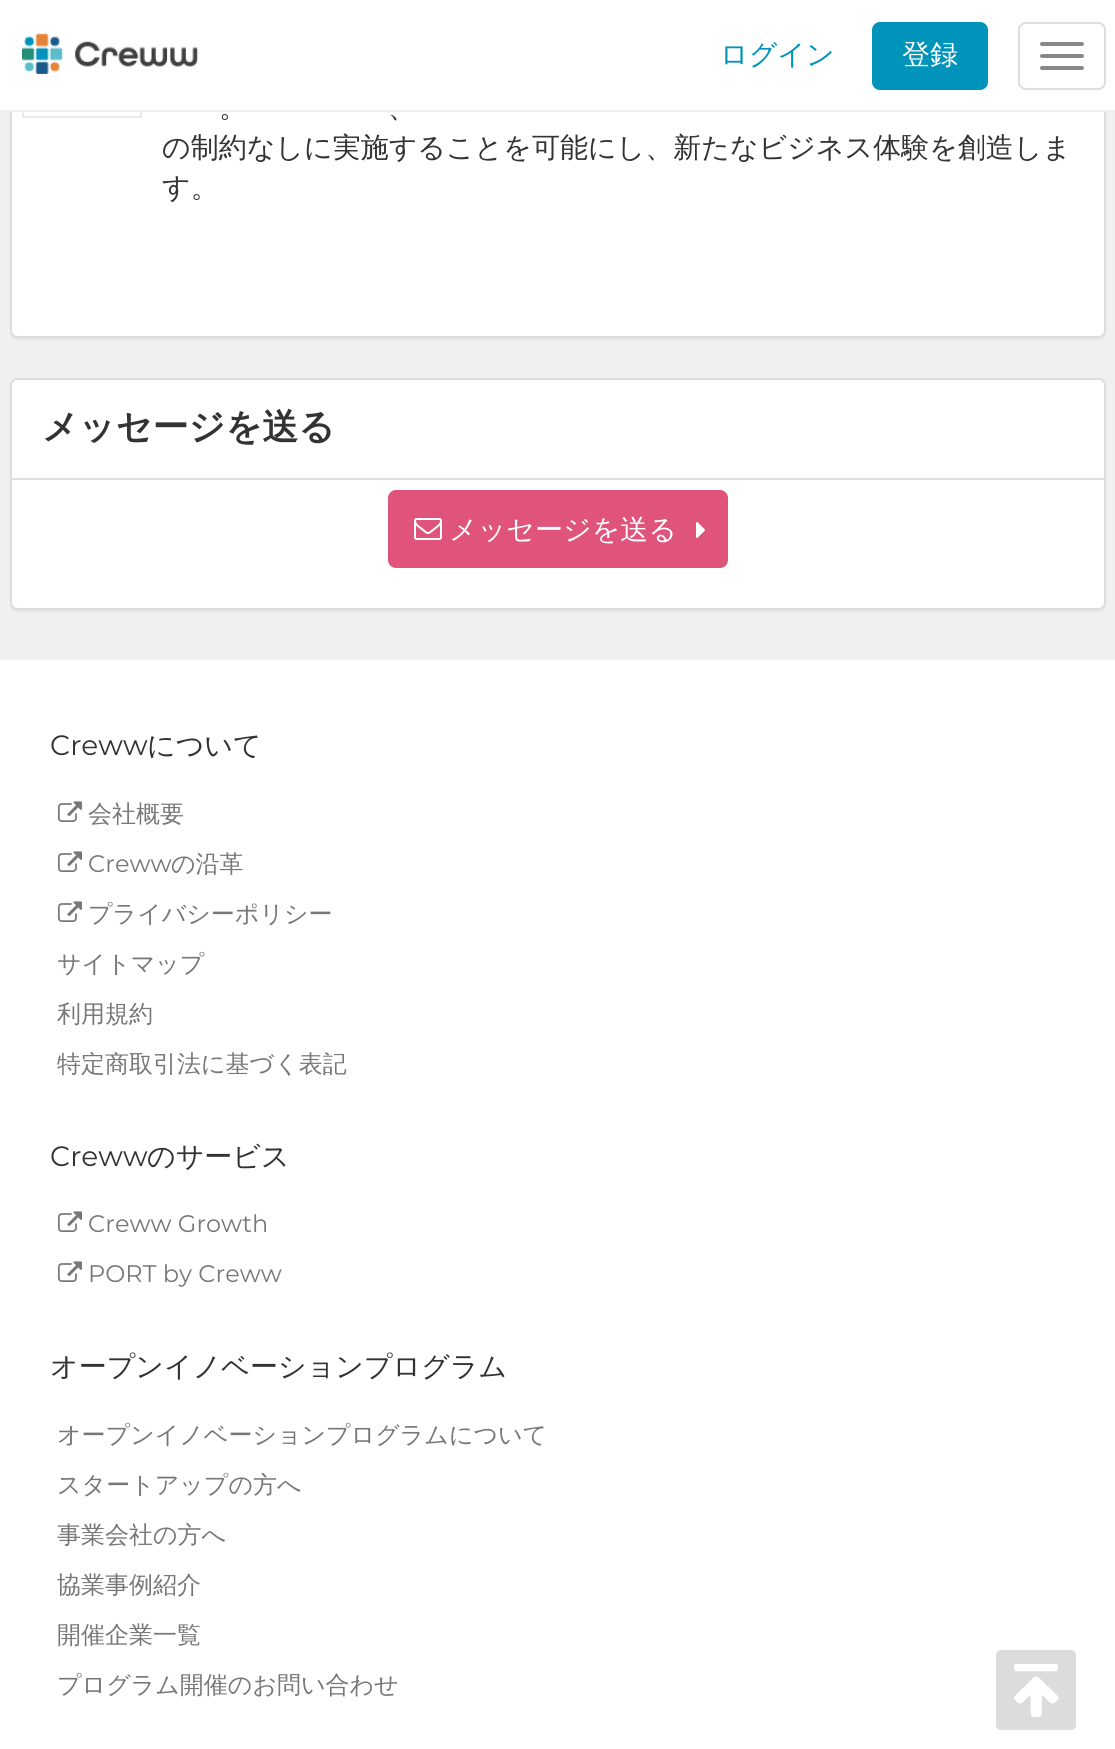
#include <cairo.h>
#include <math.h>
#include <stddef.h>

typedef struct { double x, y; const char *s; } line_t;

static void ink(cairo_t *ctx, unsigned color) {
    cairo_set_source_rgb(ctx, (color >> 16) / 255.0, (color >> 8 & 255) / 255.0, (color & 255) / 255.0);
}

static void round_path(cairo_t *ctx, double x, double y, double w, double h, double r) {
    cairo_new_sub_path(ctx);
    cairo_arc(ctx, x + w - r, y + h - r, r, 0, M_PI / 2);
    cairo_arc(ctx, x + r, y + h - r, r, M_PI / 2, M_PI);
    cairo_arc(ctx, x + r, y + r, r, M_PI, 1.5 * M_PI);
    cairo_arc(ctx, x + w - r, y + r, r, 1.5 * M_PI, 2 * M_PI);
    cairo_close_path(ctx);
}

static void blur_box(cairo_t *ctx, double x, double y, double w, double h, double r, double blur, double alpha) {
    cairo_push_group_with_content(ctx, CAIRO_CONTENT_ALPHA);
    cairo_set_operator(ctx, CAIRO_OPERATOR_SOURCE);
    for (int i = 15; i >= -15 && fmin(w, h) + blur * i / 3 > 0; i -= 2) {
        double e = blur * i / 6;
        cairo_set_source_rgba(ctx, 0, 0, 0, alpha * erfc((i - 1) / 8.5) / 2);
        round_path(ctx, x - e, y - e, w + 2 * e, h + 2 * e, fmax(0, fmin(r + e + blur * .6, fmin(w, h) / 2 + e)));
        cairo_fill(ctx);
    }
    cairo_pattern_t *soft = cairo_pop_group(ctx);
    cairo_mask(ctx, soft);
    cairo_pattern_destroy(soft);
}

static void paste(cairo_t *ctx, const char *path, double x, double y, double w, double h) {
    cairo_surface_t *image = cairo_image_surface_create_from_png(path);
    cairo_save(ctx);
    cairo_set_source_surface(ctx, image, x, y);
    cairo_rectangle(ctx, x, y, w, h);
    cairo_fill(ctx);
    cairo_restore(ctx);
    cairo_surface_destroy(image);
}

int main(void) {
    cairo_surface_t *surface = cairo_image_surface_create(CAIRO_FORMAT_RGB24, 1115, 1749);
    cairo_t *ctx = cairo_create(surface);
    cairo_font_options_t *options = cairo_font_options_create();
    cairo_font_options_set_hint_metrics(options, CAIRO_HINT_METRICS_OFF);
    cairo_font_options_set_hint_style(options, CAIRO_HINT_STYLE_NONE);
    cairo_set_font_options(ctx, options);
    cairo_set_miter_limit(ctx, 4);
    ink(ctx, 0xF0F0F0);
    cairo_paint(ctx);
    ink(ctx, 0x000000);
    blur_box(ctx, 10, -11, 1096, 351, 8, 1, 0.05);
    ink(ctx, 0xFFFFFF);
    round_path(ctx, 11, -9, 1094, 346, 7);
    cairo_fill_preserve(ctx);
    ink(ctx, 0xDDDDDD);
    cairo_stroke(ctx);
    cairo_rectangle(ctx, 23, -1, 118, 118);
    ink(ctx, 0xEAEAEA);
    cairo_stroke(ctx);
    ink(ctx, 0xFFFFFF);
    cairo_rectangle(ctx, 0, 0, 1115, 110);
    cairo_fill(ctx);
    ink(ctx, 0xEEEEEE);
    cairo_rectangle(ctx, 10, 110, 1096, 2);
    cairo_fill(ctx);
    paste(ctx, "media/1.png", 22, 33, 176, 41);
    cairo_select_font_face(ctx, "WenQuanYi Zen Hei Medium", CAIRO_FONT_SLANT_NORMAL, CAIRO_FONT_WEIGHT_NORMAL);
    cairo_set_font_size(ctx, 28);
    ink(ctx, 0x0094BB);
    cairo_move_to(ctx, 720, 64);
    cairo_show_text(ctx, "ログイン");
    round_path(ctx, 872, 22, 116, 68, 8);
    cairo_fill(ctx);
    ink(ctx, 0xFFFFFF);
    cairo_move_to(ctx, 902, 64);
    cairo_show_text(ctx, "登録");
    round_path(ctx, 1019, 23, 86, 66, 7);
    ink(ctx, 0xDDDDDD);
    cairo_stroke(ctx);
    ink(ctx, 0x888888);
    round_path(ctx, 1040, 42, 44, 4, 2);
    cairo_fill(ctx);
    round_path(ctx, 1040, 54, 44, 4, 2);
    cairo_fill(ctx);
    round_path(ctx, 1040, 66, 44, 4, 2);
    cairo_fill(ctx);
    ink(ctx, 0x333333);
    {
        static const line_t items[] = {
            {219, 117, "。"},
            {388, 117, "、"},
            {162, 157, "の制約なしに実施することを可能にし、新たなビジネス体験を創造しま"},
            {162, 197, "す。"},
        };
        for (size_t i = 0; i < sizeof items / sizeof *items; i++) {
            cairo_move_to(ctx, items[i].x, items[i].y);
            cairo_show_text(ctx, items[i].s);
        }
    }
    ink(ctx, 0x000000);
    blur_box(ctx, 10, 380, 1096, 232, 8, 1, 0.05);
    ink(ctx, 0xFFFFFF);
    round_path(ctx, 11, 379, 1094, 230, 7);
    cairo_fill_preserve(ctx);
    ink(ctx, 0xDDDDDD);
    cairo_stroke(ctx);
    ink(ctx, 0xFFFFFF);
    cairo_new_path(ctx);
    cairo_move_to(ctx, 18, 380);
    cairo_line_to(ctx, 1098, 380);
    cairo_curve_to(ctx, 1101.5, 380, 1104, 382.5, 1104, 386);
    cairo_line_to(ctx, 1104, 480);
    cairo_line_to(ctx, 12, 480);
    cairo_line_to(ctx, 12, 386);
    cairo_curve_to(ctx, 12, 382.5, 14.5, 380, 18, 380);
    cairo_close_path(ctx);
    cairo_fill(ctx);
    ink(ctx, 0xDDDDDD);
    cairo_rectangle(ctx, 12, 478, 1092, 2);
    cairo_fill(ctx);
    cairo_select_font_face(ctx, "WenQuanYi Zen Hei", CAIRO_FONT_SLANT_NORMAL, CAIRO_FONT_WEIGHT_BOLD);
    cairo_set_font_size(ctx, 36);
    ink(ctx, 0x333333);
    cairo_move_to(ctx, 42, 439);
    cairo_show_text(ctx, "メッセージを送る");
    ink(ctx, 0xE0547B);
    round_path(ctx, 389, 491, 338, 76, 7);
    cairo_fill_preserve(ctx);
    cairo_stroke(ctx);
    paste(ctx, "media/2.png", 414, 518, 28, 22);
    cairo_select_font_face(ctx, "WenQuanYi Zen Hei Medium", CAIRO_FONT_SLANT_NORMAL, CAIRO_FONT_WEIGHT_NORMAL);
    cairo_set_font_size(ctx, 28);
    ink(ctx, 0xFFFFFF);
    cairo_move_to(ctx, 449, 539);
    cairo_show_text(ctx, "メッセージを送る");
    paste(ctx, "media/3.png", 696, 522, 9, 16);
    cairo_rectangle(ctx, 0, 660, 1115, 1089);
    cairo_fill(ctx);
    cairo_select_font_face(ctx, "Montserrat", CAIRO_FONT_SLANT_NORMAL, CAIRO_FONT_WEIGHT_NORMAL);
    ink(ctx, 0x333333);
    cairo_move_to(ctx, 50, 755);
    cairo_show_text(ctx, "Creww");
    cairo_select_font_face(ctx, "WenQuanYi Zen Hei Medium", CAIRO_FONT_SLANT_NORMAL, CAIRO_FONT_WEIGHT_NORMAL);
    cairo_move_to(ctx, 147, 755);
    cairo_show_text(ctx, "について");
    paste(ctx, "media/4.png", 58, 801, 24, 21);
    cairo_set_font_size(ctx, 24);
    ink(ctx, 0x777777);
    cairo_move_to(ctx, 88, 822);
    cairo_show_text(ctx, "会社概要");
    paste(ctx, "media/4.png", 58, 851, 24, 21);
    cairo_select_font_face(ctx, "Montserrat", CAIRO_FONT_SLANT_NORMAL, CAIRO_FONT_WEIGHT_NORMAL);
    cairo_move_to(ctx, 88, 872);
    cairo_show_text(ctx, "Creww");
    cairo_select_font_face(ctx, "WenQuanYi Zen Hei Medium", CAIRO_FONT_SLANT_NORMAL, CAIRO_FONT_WEIGHT_NORMAL);
    cairo_move_to(ctx, 171, 872);
    cairo_show_text(ctx, "の沿革");
    paste(ctx, "media/4.png", 58, 901, 24, 21);
    {
        static const line_t items[] = {
            {88, 922, "プライバシーポリシー"},
            {57, 972, "サイトマップ"},
            {57, 1022, "利用規約"},
            {57, 1072, "特定商取引法に基づく表記"},
        };
        for (size_t i = 0; i < sizeof items / sizeof *items; i++) {
            cairo_move_to(ctx, items[i].x, items[i].y);
            cairo_show_text(ctx, items[i].s);
        }
    }
    cairo_select_font_face(ctx, "Montserrat", CAIRO_FONT_SLANT_NORMAL, CAIRO_FONT_WEIGHT_NORMAL);
    cairo_set_font_size(ctx, 28);
    ink(ctx, 0x333333);
    cairo_move_to(ctx, 50, 1166);
    cairo_show_text(ctx, "Creww");
    cairo_select_font_face(ctx, "WenQuanYi Zen Hei Medium", CAIRO_FONT_SLANT_NORMAL, CAIRO_FONT_WEIGHT_NORMAL);
    cairo_move_to(ctx, 147, 1166);
    cairo_show_text(ctx, "のサービス");
    paste(ctx, "media/4.png", 58, 1211, 24, 21);
    cairo_select_font_face(ctx, "Montserrat", CAIRO_FONT_SLANT_NORMAL, CAIRO_FONT_WEIGHT_NORMAL);
    cairo_set_font_size(ctx, 24);
    ink(ctx, 0x777777);
    cairo_move_to(ctx, 88, 1232);
    cairo_show_text(ctx, "Creww Growth");
    paste(ctx, "media/4.png", 58, 1261, 24, 21);
    cairo_move_to(ctx, 88, 1282);
    cairo_show_text(ctx, "PORT by Creww");
    cairo_select_font_face(ctx, "WenQuanYi Zen Hei Medium", CAIRO_FONT_SLANT_NORMAL, CAIRO_FONT_WEIGHT_NORMAL);
    cairo_set_font_size(ctx, 28);
    ink(ctx, 0x333333);
    cairo_move_to(ctx, 50, 1376);
    cairo_show_text(ctx, "オープンイノベーションプログラム");
    cairo_set_font_size(ctx, 24);
    ink(ctx, 0x777777);
    {
        static const line_t items[] = {
            {57, 1443, "オープンイノベーションプログラムについて"},
            {57, 1493, "スタートアップの方へ"},
            {57, 1543, "事業会社の方へ"},
            {57, 1593, "協業事例紹介"},
            {57, 1643, "開催企業一覧"},
            {57, 1693, "プログラム開催のお問い合わせ"},
        };
        for (size_t i = 0; i < sizeof items / sizeof *items; i++) {
            cairo_move_to(ctx, items[i].x, items[i].y);
            cairo_show_text(ctx, items[i].s);
        }
    }
    paste(ctx, "media/5.png", 996, 1650, 80, 80);
    cairo_surface_write_to_png(surface, "image.png");
    cairo_font_options_destroy(options);
    cairo_destroy(ctx);
    cairo_surface_destroy(surface);
    return 0;
}
